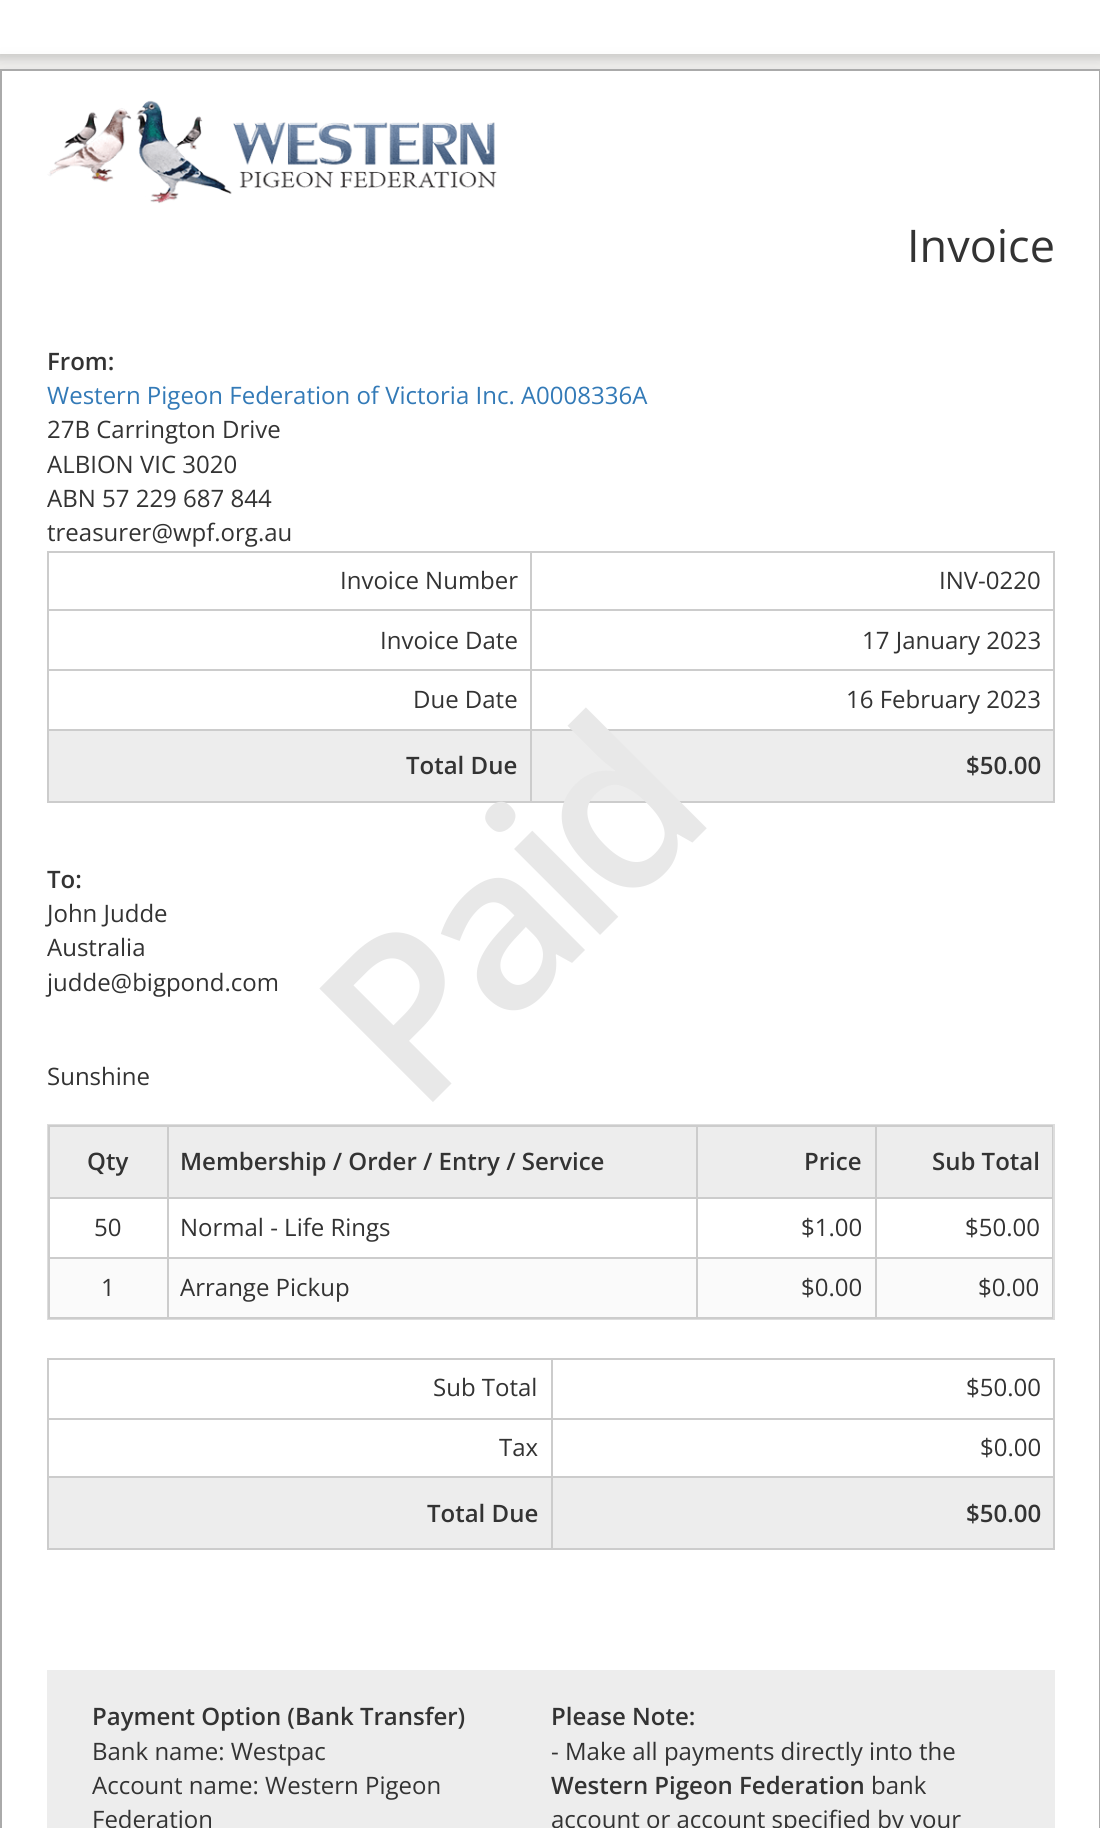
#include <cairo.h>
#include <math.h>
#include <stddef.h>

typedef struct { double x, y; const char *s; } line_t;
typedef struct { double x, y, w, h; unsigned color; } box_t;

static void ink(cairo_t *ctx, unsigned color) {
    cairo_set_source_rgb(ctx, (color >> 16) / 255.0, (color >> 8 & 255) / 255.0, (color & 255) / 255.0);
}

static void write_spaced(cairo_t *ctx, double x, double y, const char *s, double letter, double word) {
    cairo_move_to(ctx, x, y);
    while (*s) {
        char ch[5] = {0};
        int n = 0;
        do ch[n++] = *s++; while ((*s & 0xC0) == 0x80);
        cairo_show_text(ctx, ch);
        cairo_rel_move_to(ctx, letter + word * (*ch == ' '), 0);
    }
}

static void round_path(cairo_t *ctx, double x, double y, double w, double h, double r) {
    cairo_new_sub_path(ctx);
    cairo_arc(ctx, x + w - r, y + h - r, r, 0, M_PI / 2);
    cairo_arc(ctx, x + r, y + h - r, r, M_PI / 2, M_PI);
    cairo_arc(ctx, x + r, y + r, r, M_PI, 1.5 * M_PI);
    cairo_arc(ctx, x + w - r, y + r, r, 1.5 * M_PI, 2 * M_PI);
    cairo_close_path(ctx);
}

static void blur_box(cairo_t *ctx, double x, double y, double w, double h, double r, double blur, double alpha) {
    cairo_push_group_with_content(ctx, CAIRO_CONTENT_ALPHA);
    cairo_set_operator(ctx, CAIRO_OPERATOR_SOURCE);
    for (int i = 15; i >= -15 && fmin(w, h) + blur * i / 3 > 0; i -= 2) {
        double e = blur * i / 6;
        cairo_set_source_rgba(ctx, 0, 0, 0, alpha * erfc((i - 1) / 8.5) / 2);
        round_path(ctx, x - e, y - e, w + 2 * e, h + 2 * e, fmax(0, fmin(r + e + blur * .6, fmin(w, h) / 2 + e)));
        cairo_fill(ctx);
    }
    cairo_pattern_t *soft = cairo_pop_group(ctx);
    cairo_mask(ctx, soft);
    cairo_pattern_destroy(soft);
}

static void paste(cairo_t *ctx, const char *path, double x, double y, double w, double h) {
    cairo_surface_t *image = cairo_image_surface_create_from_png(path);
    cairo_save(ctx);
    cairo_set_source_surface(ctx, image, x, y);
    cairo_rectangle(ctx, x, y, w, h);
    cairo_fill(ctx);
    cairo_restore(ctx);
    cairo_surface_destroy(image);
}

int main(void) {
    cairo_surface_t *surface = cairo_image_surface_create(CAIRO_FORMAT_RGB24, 1100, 1828);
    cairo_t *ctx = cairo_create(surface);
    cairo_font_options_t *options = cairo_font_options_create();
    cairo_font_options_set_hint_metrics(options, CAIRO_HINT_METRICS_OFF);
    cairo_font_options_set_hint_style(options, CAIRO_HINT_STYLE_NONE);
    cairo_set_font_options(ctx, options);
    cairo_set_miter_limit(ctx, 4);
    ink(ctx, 0xF2F1EF);
    cairo_paint(ctx);
    ink(ctx, 0x000000);
    blur_box(ctx, -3, -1, 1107, 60, 0, 4, 0.15);
    ink(ctx, 0xFFFFFF);
    cairo_rectangle(ctx, 0, 0, 1100, 54);
    cairo_fill(ctx);
    ink(ctx, 0x000000);
    blur_box(ctx, 0, 69, 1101, 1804, 0, 15, 0.07);
    ink(ctx, 0xFFFFFF);
    cairo_rectangle(ctx, 1, 70, 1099, 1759);
    cairo_fill_preserve(ctx);
    ink(ctx, 0xAAAAAA);
    cairo_stroke(ctx);
    paste(ctx, "media/1.png", 47, 100, 450, 104);
    cairo_select_font_face(ctx, "Open Sans", CAIRO_FONT_SLANT_NORMAL, CAIRO_FONT_WEIGHT_NORMAL);
    cairo_set_font_size(ctx, 45);
    ink(ctx, 0x333333);
    cairo_move_to(ctx, 907, 262);
    cairo_show_text(ctx, "Invoice");
    cairo_select_font_face(ctx, "Open Sans SemiBold", CAIRO_FONT_SLANT_NORMAL, CAIRO_FONT_WEIGHT_NORMAL);
    cairo_set_font_size(ctx, 24);
    cairo_move_to(ctx, 47, 370);
    cairo_show_text(ctx, "From:");
    cairo_select_font_face(ctx, "Open Sans", CAIRO_FONT_SLANT_NORMAL, CAIRO_FONT_WEIGHT_NORMAL);
    ink(ctx, 0x337AB7);
    cairo_move_to(ctx, 47, 404);
    cairo_show_text(ctx, "Western Pigeon Federation of Victoria Inc. A0008336A");
    ink(ctx, 0x333333);
    {
        static const line_t items[] = {
            {47, 438, "27B Carrington Drive"},
            {47, 473, "ALBION VIC 3020"},
            {47, 507, "ABN 57 229 687 844"},
            {47, 541, "treasurer@wpf.org.au"},
        };
        for (size_t i = 0; i < sizeof items / sizeof *items; i++) {
            cairo_move_to(ctx, items[i].x, items[i].y);
            cairo_show_text(ctx, items[i].s);
        }
    }
    {
        static const box_t items[] = {
            {47, 551, 1008, 2, 0xCCCCCC},
            {1053, 551, 2, 252, 0xCCCCCC},
            {47, 801, 1008, 2, 0xCCCCCC},
            {47, 551, 2, 252, 0xCCCCCC},
        };
        for (size_t i = 0; i < sizeof items / sizeof *items; i++) {
            ink(ctx, items[i].color);
            cairo_rectangle(ctx, items[i].x, items[i].y, items[i].w, items[i].h);
            cairo_fill(ctx);
        }
    }
    ink(ctx, 0x333333);
    cairo_move_to(ctx, 340, 589);
    cairo_show_text(ctx, "Invoice Number");
    {
        static const box_t items[] = {
            {530, 609, 525, 2, 0xCCCCCC},
            {530, 669, 525, 2, 0xCCCCCC},
            {530, 729, 525, 2, 0xCCCCCC},
            {530, 729, 2, 74, 0xCCCCCC},
            {47, 729, 484, 2, 0xCCCCCC},
            {530, 669, 2, 62, 0xCCCCCC},
            {47, 669, 484, 2, 0xCCCCCC},
            {530, 609, 2, 62, 0xCCCCCC},
            {47, 609, 484, 2, 0xCCCCCC},
            {530, 551, 2, 60, 0xCCCCCC},
        };
        for (size_t i = 0; i < sizeof items / sizeof *items; i++) {
            ink(ctx, items[i].color);
            cairo_rectangle(ctx, items[i].x, items[i].y, items[i].w, items[i].h);
            cairo_fill(ctx);
        }
    }
    ink(ctx, 0x333333);
    {
        static const line_t items[] = {
            {939, 589, "INV-0220"},
            {380, 649, "Invoice Date"},
            {862, 649, "17 January 2023"},
            {413, 708, "Due Date"},
            {846, 708, "16 February 2023"},
        };
        for (size_t i = 0; i < sizeof items / sizeof *items; i++) {
            cairo_move_to(ctx, items[i].x, items[i].y);
            cairo_show_text(ctx, items[i].s);
        }
    }
    ink(ctx, 0xEDEDED);
    cairo_rectangle(ctx, 49, 731, 481, 70);
    cairo_fill(ctx);
    cairo_select_font_face(ctx, "Open Sans SemiBold", CAIRO_FONT_SLANT_NORMAL, CAIRO_FONT_WEIGHT_NORMAL);
    ink(ctx, 0x333333);
    cairo_move_to(ctx, 406, 774);
    cairo_show_text(ctx, "Total Due");
    ink(ctx, 0xEDEDED);
    cairo_rectangle(ctx, 532, 731, 521, 70);
    cairo_fill(ctx);
    ink(ctx, 0x333333);
    cairo_move_to(ctx, 966, 774);
    cairo_show_text(ctx, "$50.00");
    cairo_move_to(ctx, 47, 888);
    cairo_show_text(ctx, "To:");
    cairo_select_font_face(ctx, "Open Sans", CAIRO_FONT_SLANT_NORMAL, CAIRO_FONT_WEIGHT_NORMAL);
    {
        static const line_t items[] = {
            {47, 922, "John Judde"},
            {47, 956, "Australia"},
            {47, 991, "judde@bigpond.com"},
        };
        for (size_t i = 0; i < sizeof items / sizeof *items; i++) {
            cairo_move_to(ctx, items[i].x, items[i].y);
            cairo_show_text(ctx, items[i].s);
        }
    }
    cairo_select_font_face(ctx, "Open Sans SemiBold", CAIRO_FONT_SLANT_NORMAL, CAIRO_FONT_WEIGHT_NORMAL);
    cairo_set_font_size(ctx, 225);
    ink(ctx, 0xE8E8E8);
    cairo_save(ctx);
    cairo_translate(ctx, 418, 1117);
    cairo_rotate(ctx, -45 * M_PI / 180);
    write_spaced(ctx, 0, 0, "Paid", -15, 0);
    cairo_restore(ctx);
    cairo_select_font_face(ctx, "Open Sans", CAIRO_FONT_SLANT_NORMAL, CAIRO_FONT_WEIGHT_NORMAL);
    cairo_set_font_size(ctx, 24);
    ink(ctx, 0x333333);
    cairo_move_to(ctx, 47, 1085);
    cairo_show_text(ctx, "Sunshine");
    cairo_rectangle(ctx, 48, 1125, 1006, 194);
    ink(ctx, 0xDDDDDD);
    cairo_stroke(ctx);
    {
        static const box_t items[] = {
            {48, 1125, 1005, 2, 0xCCCCCC},
            {1052, 1125, 1, 194, 0xCCCCCC},
            {48, 1317, 1005, 2, 0xCCCCCC},
            {48, 1125, 2, 194, 0xCCCCCC},
            {50, 1127, 117, 70, 0xEDEDED},
        };
        for (size_t i = 0; i < sizeof items / sizeof *items; i++) {
            ink(ctx, items[i].color);
            cairo_rectangle(ctx, items[i].x, items[i].y, items[i].w, items[i].h);
            cairo_fill(ctx);
        }
    }
    cairo_select_font_face(ctx, "Open Sans SemiBold", CAIRO_FONT_SLANT_NORMAL, CAIRO_FONT_WEIGHT_NORMAL);
    ink(ctx, 0x333333);
    cairo_move_to(ctx, 87, 1170);
    cairo_show_text(ctx, "Qty");
    {
        static const box_t items[] = {
            {169, 1127, 527, 70, 0xEDEDED},
            {875, 1197, 178, 2, 0xCCCCCC},
            {875, 1257, 178, 2, 0xCCCCCC},
            {50, 1259, 1002, 58, 0xFAFAFA},
            {875, 1257, 2, 62, 0xCCCCCC},
            {696, 1257, 180, 2, 0xCCCCCC},
            {875, 1197, 2, 62, 0xCCCCCC},
            {696, 1197, 180, 2, 0xCCCCCC},
            {696, 1257, 2, 62, 0xCCCCCC},
            {167, 1257, 531, 2, 0xCCCCCC},
            {696, 1197, 2, 62, 0xCCCCCC},
            {167, 1197, 531, 2, 0xCCCCCC},
            {167, 1257, 2, 62, 0xCCCCCC},
            {48, 1257, 120, 2, 0xCCCCCC},
            {167, 1197, 2, 62, 0xCCCCCC},
            {48, 1197, 120, 2, 0xCCCCCC},
            {167, 1125, 2, 74, 0xCCCCCC},
        };
        for (size_t i = 0; i < sizeof items / sizeof *items; i++) {
            ink(ctx, items[i].color);
            cairo_rectangle(ctx, items[i].x, items[i].y, items[i].w, items[i].h);
            cairo_fill(ctx);
        }
    }
    ink(ctx, 0x333333);
    cairo_move_to(ctx, 180, 1170);
    cairo_show_text(ctx, "Membership / Order / Entry / Service");
    ink(ctx, 0xEDEDED);
    cairo_rectangle(ctx, 698, 1127, 177, 70);
    cairo_fill(ctx);
    ink(ctx, 0xCCCCCC);
    cairo_rectangle(ctx, 696, 1125, 2, 74);
    cairo_fill(ctx);
    ink(ctx, 0x333333);
    cairo_move_to(ctx, 804, 1170);
    cairo_show_text(ctx, "Price");
    ink(ctx, 0xEDEDED);
    cairo_rectangle(ctx, 877, 1127, 175, 70);
    cairo_fill(ctx);
    ink(ctx, 0xCCCCCC);
    cairo_rectangle(ctx, 875, 1125, 2, 74);
    cairo_fill(ctx);
    ink(ctx, 0x333333);
    cairo_move_to(ctx, 932, 1170);
    cairo_show_text(ctx, "Sub Total");
    cairo_select_font_face(ctx, "Open Sans", CAIRO_FONT_SLANT_NORMAL, CAIRO_FONT_WEIGHT_NORMAL);
    {
        static const line_t items[] = {
            {94, 1236, "50"},
            {180, 1236, "Normal - Life Rings"},
            {801, 1236, "$1.00"},
            {965, 1236, "$50.00"},
            {101, 1296, "1"},
            {180, 1296, "Arrange Pickup"},
            {801, 1296, "$0.00"},
            {978, 1296, "$0.00"},
        };
        for (size_t i = 0; i < sizeof items / sizeof *items; i++) {
            cairo_move_to(ctx, items[i].x, items[i].y);
            cairo_show_text(ctx, items[i].s);
        }
    }
    {
        static const box_t items[] = {
            {47, 1358, 1008, 2, 0xCCCCCC},
            {1053, 1358, 2, 192, 0xCCCCCC},
            {47, 1548, 1008, 2, 0xCCCCCC},
            {47, 1358, 2, 192, 0xCCCCCC},
        };
        for (size_t i = 0; i < sizeof items / sizeof *items; i++) {
            ink(ctx, items[i].color);
            cairo_rectangle(ctx, items[i].x, items[i].y, items[i].w, items[i].h);
            cairo_fill(ctx);
        }
    }
    ink(ctx, 0x333333);
    cairo_move_to(ctx, 433, 1396);
    cairo_show_text(ctx, "Sub Total");
    {
        static const box_t items[] = {
            {551, 1418, 504, 2, 0xCCCCCC},
            {551, 1476, 504, 2, 0xCCCCCC},
            {551, 1476, 2, 74, 0xCCCCCC},
            {47, 1476, 505, 2, 0xCCCCCC},
            {551, 1418, 2, 60, 0xCCCCCC},
            {47, 1418, 505, 2, 0xCCCCCC},
            {551, 1358, 2, 61, 0xCCCCCC},
        };
        for (size_t i = 0; i < sizeof items / sizeof *items; i++) {
            ink(ctx, items[i].color);
            cairo_rectangle(ctx, items[i].x, items[i].y, items[i].w, items[i].h);
            cairo_fill(ctx);
        }
    }
    ink(ctx, 0x333333);
    {
        static const line_t items[] = {
            {966, 1396, "$50.00"},
            {499, 1456, "Tax"},
            {980, 1456, "$0.00"},
        };
        for (size_t i = 0; i < sizeof items / sizeof *items; i++) {
            cairo_move_to(ctx, items[i].x, items[i].y);
            cairo_show_text(ctx, items[i].s);
        }
    }
    ink(ctx, 0xEDEDED);
    cairo_rectangle(ctx, 49, 1478, 502, 70);
    cairo_fill(ctx);
    cairo_select_font_face(ctx, "Open Sans SemiBold", CAIRO_FONT_SLANT_NORMAL, CAIRO_FONT_WEIGHT_NORMAL);
    ink(ctx, 0x333333);
    cairo_move_to(ctx, 427, 1522);
    cairo_show_text(ctx, "Total Due");
    ink(ctx, 0xEDEDED);
    cairo_rectangle(ctx, 553, 1478, 500, 70);
    cairo_fill(ctx);
    ink(ctx, 0x333333);
    cairo_move_to(ctx, 966, 1522);
    cairo_show_text(ctx, "$50.00");
    ink(ctx, 0xEDEDED);
    cairo_rectangle(ctx, 47, 1670, 1008, 158);
    cairo_fill(ctx);
    ink(ctx, 0x333333);
    cairo_move_to(ctx, 92, 1725);
    cairo_show_text(ctx, "Payment Option (Bank Transfer)");
    cairo_select_font_face(ctx, "Open Sans", CAIRO_FONT_SLANT_NORMAL, CAIRO_FONT_WEIGHT_NORMAL);
    {
        static const line_t items[] = {
            {92, 1760, "Bank name: Westpac"},
            {92, 1794, "Account name: Western Pigeon"},
            {92, 1828, "Federation"},
        };
        for (size_t i = 0; i < sizeof items / sizeof *items; i++) {
            cairo_move_to(ctx, items[i].x, items[i].y);
            cairo_show_text(ctx, items[i].s);
        }
    }
    cairo_select_font_face(ctx, "Open Sans SemiBold", CAIRO_FONT_SLANT_NORMAL, CAIRO_FONT_WEIGHT_NORMAL);
    cairo_move_to(ctx, 551, 1725);
    cairo_show_text(ctx, "Please Note:");
    cairo_select_font_face(ctx, "Open Sans", CAIRO_FONT_SLANT_NORMAL, CAIRO_FONT_WEIGHT_NORMAL);
    cairo_move_to(ctx, 551, 1760);
    cairo_show_text(ctx, "- Make all payments directly into the");
    cairo_select_font_face(ctx, "Open Sans SemiBold", CAIRO_FONT_SLANT_NORMAL, CAIRO_FONT_WEIGHT_NORMAL);
    cairo_move_to(ctx, 551, 1794);
    cairo_show_text(ctx, "Western Pigeon Federation");
    cairo_select_font_face(ctx, "Open Sans", CAIRO_FONT_SLANT_NORMAL, CAIRO_FONT_WEIGHT_NORMAL);
    cairo_move_to(ctx, 871, 1794);
    cairo_show_text(ctx, "bank");
    cairo_move_to(ctx, 551, 1828);
    cairo_show_text(ctx, "account or account specified by your");
    cairo_surface_write_to_png(surface, "image.png");
    cairo_font_options_destroy(options);
    cairo_destroy(ctx);
    cairo_surface_destroy(surface);
    return 0;
}
